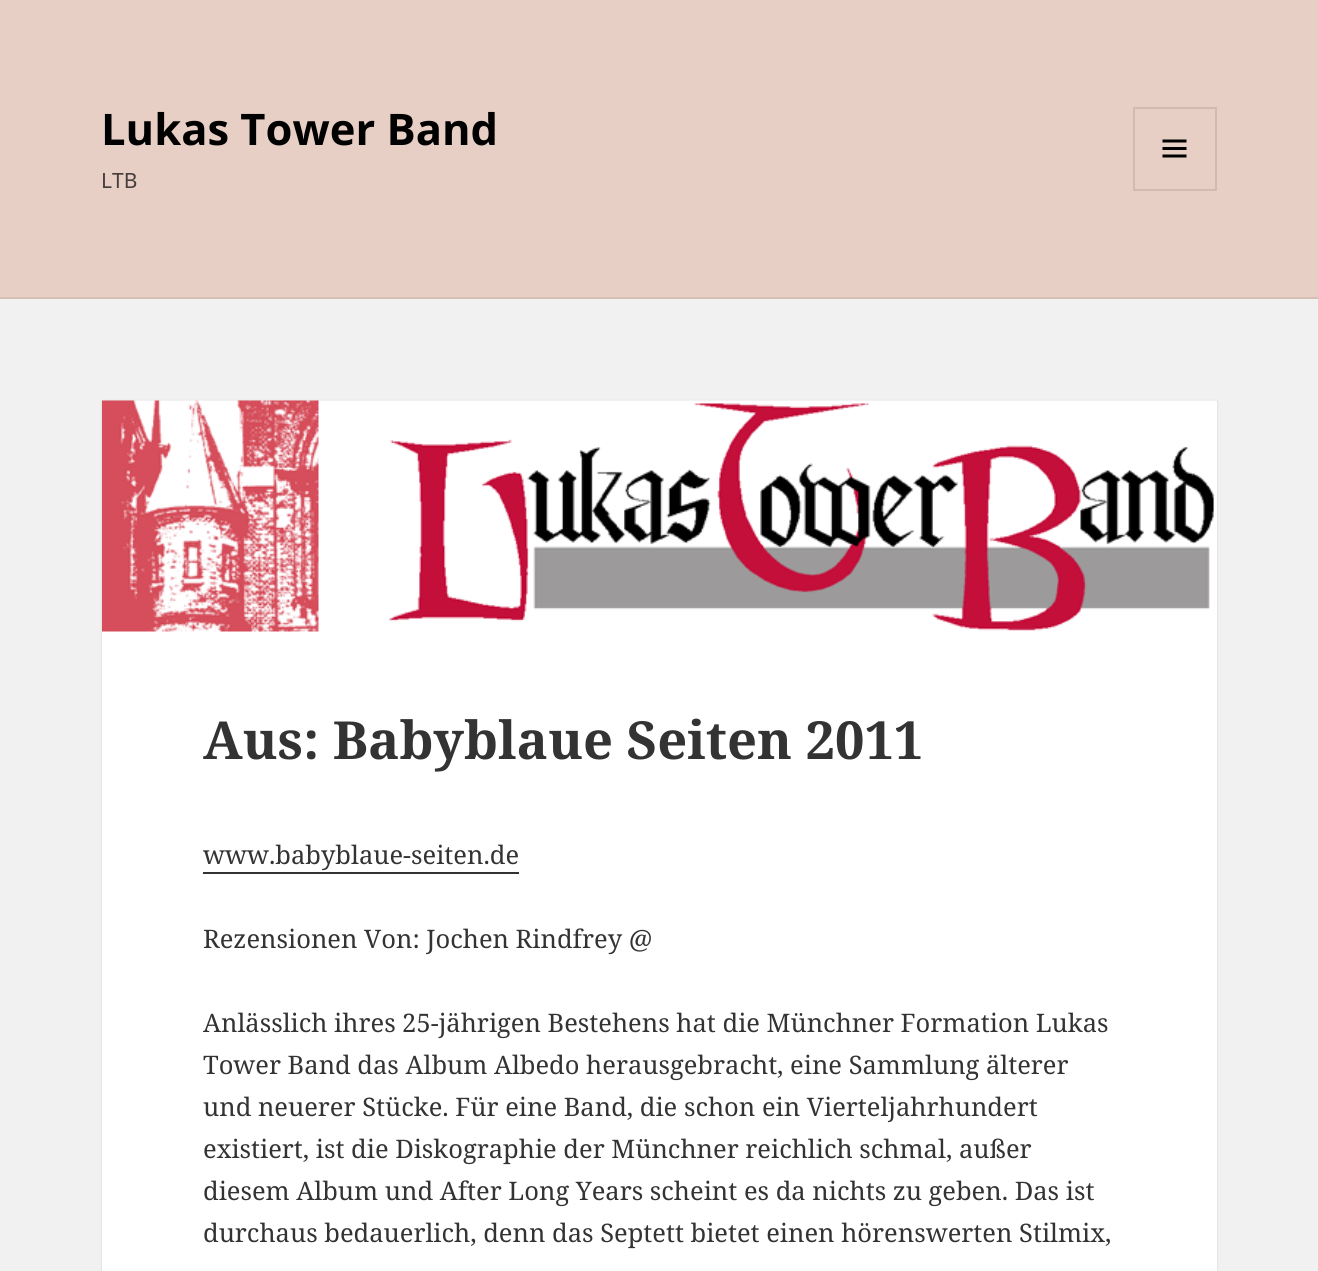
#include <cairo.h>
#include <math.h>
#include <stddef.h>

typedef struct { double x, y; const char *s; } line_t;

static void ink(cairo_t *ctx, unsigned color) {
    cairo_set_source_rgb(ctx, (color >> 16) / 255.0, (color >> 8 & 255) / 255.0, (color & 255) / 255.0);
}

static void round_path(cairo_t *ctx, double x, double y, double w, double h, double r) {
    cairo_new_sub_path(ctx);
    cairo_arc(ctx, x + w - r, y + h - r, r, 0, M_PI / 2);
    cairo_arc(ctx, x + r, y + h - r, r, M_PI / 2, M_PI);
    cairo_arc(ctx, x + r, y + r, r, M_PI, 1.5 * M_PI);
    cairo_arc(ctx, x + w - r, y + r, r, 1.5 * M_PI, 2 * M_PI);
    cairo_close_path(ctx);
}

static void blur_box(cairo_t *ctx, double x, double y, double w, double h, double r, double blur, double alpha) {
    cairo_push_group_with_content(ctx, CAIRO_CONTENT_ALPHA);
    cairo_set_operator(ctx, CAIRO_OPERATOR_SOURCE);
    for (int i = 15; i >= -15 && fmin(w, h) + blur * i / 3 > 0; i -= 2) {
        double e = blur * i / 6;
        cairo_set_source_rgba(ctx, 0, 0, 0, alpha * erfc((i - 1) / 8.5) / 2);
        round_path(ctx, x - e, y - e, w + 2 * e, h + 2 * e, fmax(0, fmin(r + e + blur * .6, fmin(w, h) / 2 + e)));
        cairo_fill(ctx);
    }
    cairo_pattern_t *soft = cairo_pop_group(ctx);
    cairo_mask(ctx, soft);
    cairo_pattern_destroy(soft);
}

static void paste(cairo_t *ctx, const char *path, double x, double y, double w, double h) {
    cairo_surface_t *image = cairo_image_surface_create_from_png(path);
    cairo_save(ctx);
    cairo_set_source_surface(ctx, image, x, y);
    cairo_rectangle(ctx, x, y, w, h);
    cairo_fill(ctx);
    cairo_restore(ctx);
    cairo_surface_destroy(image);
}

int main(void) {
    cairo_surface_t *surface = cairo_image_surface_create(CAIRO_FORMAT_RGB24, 1318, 1271);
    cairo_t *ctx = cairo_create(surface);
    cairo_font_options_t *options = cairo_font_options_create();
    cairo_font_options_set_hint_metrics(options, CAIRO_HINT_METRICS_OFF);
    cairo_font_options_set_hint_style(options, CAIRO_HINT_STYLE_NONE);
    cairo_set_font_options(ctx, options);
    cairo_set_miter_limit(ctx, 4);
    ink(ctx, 0xF1F1F1);
    cairo_paint(ctx);
    ink(ctx, 0xE8CFC5);
    cairo_rectangle(ctx, 0, 0, 1318, 297);
    cairo_fill(ctx);
    ink(ctx, 0xD6BFB6);
    cairo_rectangle(ctx, 0, 297, 1318, 2);
    cairo_fill(ctx);
    cairo_select_font_face(ctx, "Noto Sans", CAIRO_FONT_SLANT_NORMAL, CAIRO_FONT_WEIGHT_BOLD);
    cairo_set_font_size(ctx, 43.5);
    ink(ctx, 0x000000);
    cairo_move_to(ctx, 101, 145);
    cairo_show_text(ctx, "Lukas Tower Band");
    cairo_rectangle(ctx, 1134, 108, 82, 82);
    ink(ctx, 0xD1BAB1);
    cairo_stroke(ctx);
    paste(ctx, "media/1.png", 1162, 139, 25, 19);
    cairo_select_font_face(ctx, "Noto Sans", CAIRO_FONT_SLANT_NORMAL, CAIRO_FONT_WEIGHT_NORMAL);
    cairo_set_font_size(ctx, 21);
    ink(ctx, 0x463E3B);
    cairo_move_to(ctx, 101, 188);
    cairo_show_text(ctx, "LTB");
    ink(ctx, 0x000000);
    blur_box(ctx, 102, 401, 1115, 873, 0, 1, 0.15);
    ink(ctx, 0xFFFFFF);
    cairo_rectangle(ctx, 102, 401, 1115, 870);
    cairo_fill(ctx);
    paste(ctx, "media/2.png", 102, 400, 1115, 232);
    cairo_select_font_face(ctx, "Noto Serif", CAIRO_FONT_SLANT_NORMAL, CAIRO_FONT_WEIGHT_BOLD);
    cairo_set_font_size(ctx, 52.5);
    ink(ctx, 0x333333);
    cairo_move_to(ctx, 203, 759);
    cairo_show_text(ctx, "Aus: Babyblaue Seiten 2011");
    cairo_select_font_face(ctx, "Noto Serif", CAIRO_FONT_SLANT_NORMAL, CAIRO_FONT_WEIGHT_NORMAL);
    cairo_set_font_size(ctx, 25.5);
    cairo_move_to(ctx, 203, 864);
    cairo_show_text(ctx, "www.babyblaue-seiten.de");
    cairo_rectangle(ctx, 203, 872, 316, 2);
    cairo_fill(ctx);
    {
        static const line_t items[] = {
            {203, 948, "Rezensionen Von: Jochen Rindfrey @"},
            {203, 1032, "Anlässlich ihres 25-jährigen Bestehens hat die Münchner Formation Lukas"},
            {203, 1074, "Tower Band das Album Albedo herausgebracht, eine Sammlung älterer"},
            {203, 1116, "und neuerer Stücke. Für eine Band, die schon ein Vierteljahrhundert"},
            {203, 1158, "existiert, ist die Diskographie der Münchner reichlich schmal, außer"},
            {203, 1200, "diesem Album und After Long Years scheint es da nichts zu geben. Das ist"},
            {203, 1242, "durchaus bedauerlich, denn das Septett bietet einen hörenswerten Stilmix,"},
        };
        for (size_t i = 0; i < sizeof items / sizeof *items; i++) {
            cairo_move_to(ctx, items[i].x, items[i].y);
            cairo_show_text(ctx, items[i].s);
        }
    }
    cairo_surface_write_to_png(surface, "image.png");
    cairo_font_options_destroy(options);
    cairo_destroy(ctx);
    cairo_surface_destroy(surface);
    return 0;
}
